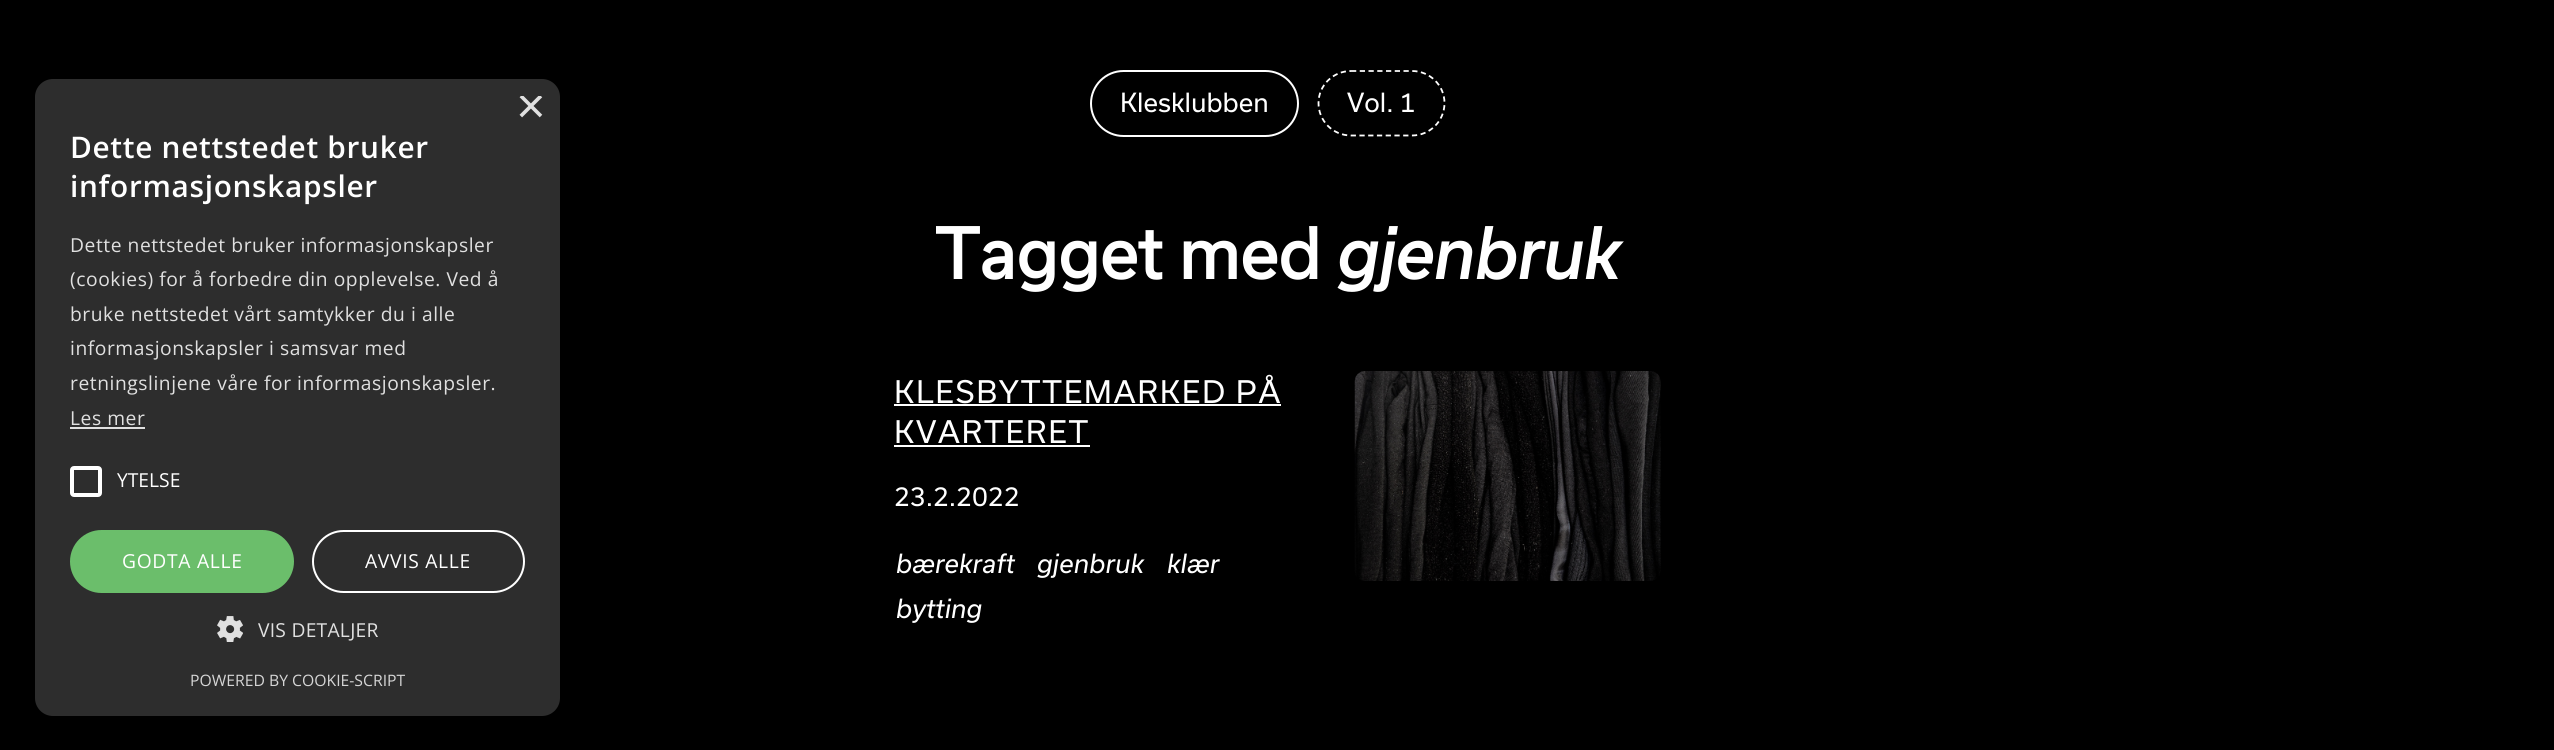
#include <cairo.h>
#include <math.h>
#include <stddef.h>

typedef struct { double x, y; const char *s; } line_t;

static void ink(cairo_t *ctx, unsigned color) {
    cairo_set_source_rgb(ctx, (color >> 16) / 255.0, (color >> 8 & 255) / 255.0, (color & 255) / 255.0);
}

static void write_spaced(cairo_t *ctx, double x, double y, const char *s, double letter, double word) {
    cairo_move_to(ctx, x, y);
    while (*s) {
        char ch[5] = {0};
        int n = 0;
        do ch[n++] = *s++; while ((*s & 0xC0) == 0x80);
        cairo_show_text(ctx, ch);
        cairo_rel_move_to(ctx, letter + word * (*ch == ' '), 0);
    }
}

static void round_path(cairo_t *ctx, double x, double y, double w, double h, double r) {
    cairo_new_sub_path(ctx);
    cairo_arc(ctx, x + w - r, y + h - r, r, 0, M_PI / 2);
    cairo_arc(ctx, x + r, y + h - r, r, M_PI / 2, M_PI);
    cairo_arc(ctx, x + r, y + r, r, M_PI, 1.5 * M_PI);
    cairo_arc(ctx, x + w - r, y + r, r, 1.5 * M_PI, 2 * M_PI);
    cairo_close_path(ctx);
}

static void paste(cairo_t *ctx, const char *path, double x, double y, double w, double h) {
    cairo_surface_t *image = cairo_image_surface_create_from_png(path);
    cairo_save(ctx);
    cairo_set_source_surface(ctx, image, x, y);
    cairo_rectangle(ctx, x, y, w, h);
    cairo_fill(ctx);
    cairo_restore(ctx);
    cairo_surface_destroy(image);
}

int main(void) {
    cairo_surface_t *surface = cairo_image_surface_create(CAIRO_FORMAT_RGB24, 2554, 750);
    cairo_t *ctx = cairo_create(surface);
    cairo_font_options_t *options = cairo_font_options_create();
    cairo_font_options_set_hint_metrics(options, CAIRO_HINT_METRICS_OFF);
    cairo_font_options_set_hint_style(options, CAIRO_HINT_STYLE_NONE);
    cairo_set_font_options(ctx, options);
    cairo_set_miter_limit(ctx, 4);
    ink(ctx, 0x000000);
    cairo_paint(ctx);
    ink(ctx, 0x2D2D2D);
    round_path(ctx, 35, 79, 525, 637, 18);
    cairo_fill(ctx);
    cairo_save(ctx);
    cairo_rectangle(ctx, 516, 96, 27, 27);
    cairo_clip(ctx);
    cairo_select_font_face(ctx, "Liberation Sans", CAIRO_FONT_SLANT_NORMAL, CAIRO_FONT_WEIGHT_NORMAL);
    cairo_set_font_size(ctx, 51);
    ink(ctx, 0xE0E0E0);
    cairo_move_to(ctx, 516, 123);
    cairo_show_text(ctx, "×");
    cairo_restore(ctx);
    cairo_select_font_face(ctx, "Open Sans SemiBold", CAIRO_FONT_SLANT_NORMAL, CAIRO_FONT_WEIGHT_NORMAL);
    cairo_set_font_size(ctx, 29.75);
    ink(ctx, 0xFFFFFF);
    write_spaced(ctx, 70, 158, "Dette nettstedet bruker", 0.7, 0);
    write_spaced(ctx, 70, 197, "informasjonskapsler", 0.7, 0);
    cairo_select_font_face(ctx, "Open Sans", CAIRO_FONT_SLANT_NORMAL, CAIRO_FONT_WEIGHT_NORMAL);
    cairo_set_font_size(ctx, 19.25);
    ink(ctx, 0xE0E0E0);
    {
        static const line_t items[] = {
            {70, 252, "Dette nettstedet bruker informasjonskapsler"},
            {70, 286, "(cookies) for å forbedre din opplevelse. Ved å"},
            {70, 321, "bruke nettstedet vårt samtykker du i alle"},
            {70, 355, "informasjonskapsler i samsvar med"},
            {70, 390, "retningslinjene våre for informasjonskapsler."},
            {70, 425, "Les mer"},
        };
        for (size_t i = 0; i < sizeof items / sizeof *items; i++) {
            write_spaced(ctx, items[i].x, items[i].y, items[i].s, 0.55, 0);
        }
    }
    cairo_rectangle(ctx, 70, 427, 75, 2);
    cairo_fill(ctx);
    round_path(ctx, 72, 468, 28, 27, 2);
    ink(ctx, 0xFFFFFF);
    cairo_set_line_width(ctx, 4);
    cairo_stroke(ctx);
    cairo_move_to(ctx, 117, 487);
    cairo_show_text(ctx, "YTELSE");
    ink(ctx, 0x6BBE6B);
    round_path(ctx, 70, 530, 224, 63, 31.5);
    cairo_fill(ctx);
    ink(ctx, 0xFFFFFF);
    write_spaced(ctx, 122, 568, "GODTA ALLE", 0.7, 0);
    round_path(ctx, 313, 531, 211, 61, 30.5);
    cairo_set_line_width(ctx, 2);
    cairo_stroke(ctx);
    write_spaced(ctx, 365, 568, "AVVIS ALLE", 0.7, 0);
    paste(ctx, "media/1.png", 217, 616, 26, 26);
    ink(ctx, 0xE0E0E0);
    write_spaced(ctx, 258, 637, "VIS DETALJER", 0.25, 0);
    cairo_set_font_size(ctx, 15.75);
    ink(ctx, 0xD5D5D5);
    cairo_move_to(ctx, 190, 686);
    cairo_show_text(ctx, "POWERED BY COOKIE-SCRIPT");
    round_path(ctx, 1091, 71, 207, 65, 32.5);
    ink(ctx, 0xFFFFFF);
    cairo_stroke(ctx);
    cairo_select_font_face(ctx, "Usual", CAIRO_FONT_SLANT_NORMAL, CAIRO_FONT_WEIGHT_NORMAL);
    cairo_set_font_size(ctx, 25.25);
    cairo_move_to(ctx, 1120, 112);
    cairo_show_text(ctx, "Klesklubben");
    cairo_new_path(ctx);
    cairo_move_to(ctx, 1351, 71);
    cairo_line_to(ctx, 1412, 71);
    cairo_curve_to(ctx, 1430, 71, 1444.5, 85.5, 1444.5, 103);
    cairo_curve_to(ctx, 1444.5, 121, 1430, 135.5, 1412, 135.5);
    cairo_line_to(ctx, 1351, 135.5);
    cairo_curve_to(ctx, 1333, 135.5, 1318.5, 121, 1318.5, 103);
    cairo_curve_to(ctx, 1318.5, 85.5, 1333, 71, 1351, 71);
    cairo_close_path(ctx);
    cairo_set_line_width(ctx, 1.8);
    cairo_set_dash(ctx, (double[]){5.25, 3.5}, 2, 0);
    cairo_stroke(ctx);
    cairo_move_to(ctx, 1347, 112);
    cairo_show_text(ctx, "Vol. 1");
    cairo_select_font_face(ctx, "Usual", CAIRO_FONT_SLANT_NORMAL, CAIRO_FONT_WEIGHT_BOLD);
    cairo_set_font_size(ctx, 66.5);
    cairo_move_to(ctx, 935, 279);
    cairo_show_text(ctx, "Tagget med");
    cairo_select_font_face(ctx, "Usual", CAIRO_FONT_SLANT_ITALIC, CAIRO_FONT_WEIGHT_BOLD);
    cairo_move_to(ctx, 1337, 279);
    cairo_show_text(ctx, "gjenbruk");
    cairo_select_font_face(ctx, "Usual", CAIRO_FONT_SLANT_NORMAL, CAIRO_FONT_WEIGHT_NORMAL);
    cairo_set_font_size(ctx, 29.75);
    write_spaced(ctx, 894, 403, "KLESBYTTEMARKED PÅ", 1.75, 0);
    cairo_rectangle(ctx, 894, 404, 387, 2);
    cairo_fill(ctx);
    write_spaced(ctx, 894, 443, "KVARTERET", 1.75, 0);
    cairo_rectangle(ctx, 894, 445, 196, 2);
    cairo_fill(ctx);
    cairo_set_font_size(ctx, 25.25);
    cairo_move_to(ctx, 894, 506);
    cairo_show_text(ctx, "23.2.2022");
    cairo_select_font_face(ctx, "Usual", CAIRO_FONT_SLANT_ITALIC, CAIRO_FONT_WEIGHT_NORMAL);
    {
        static const line_t items[] = {
            {896, 573, "bærekraft"},
            {1037, 573, "gjenbruk"},
            {1167, 573, "klær"},
            {896, 618, "bytting"},
        };
        for (size_t i = 0; i < sizeof items / sizeof *items; i++) {
            cairo_move_to(ctx, items[i].x, items[i].y);
            cairo_show_text(ctx, items[i].s);
        }
    }
    paste(ctx, "media/2.png", 1354, 371, 307, 210);
    cairo_surface_write_to_png(surface, "image.png");
    cairo_font_options_destroy(options);
    cairo_destroy(ctx);
    cairo_surface_destroy(surface);
    return 0;
}
